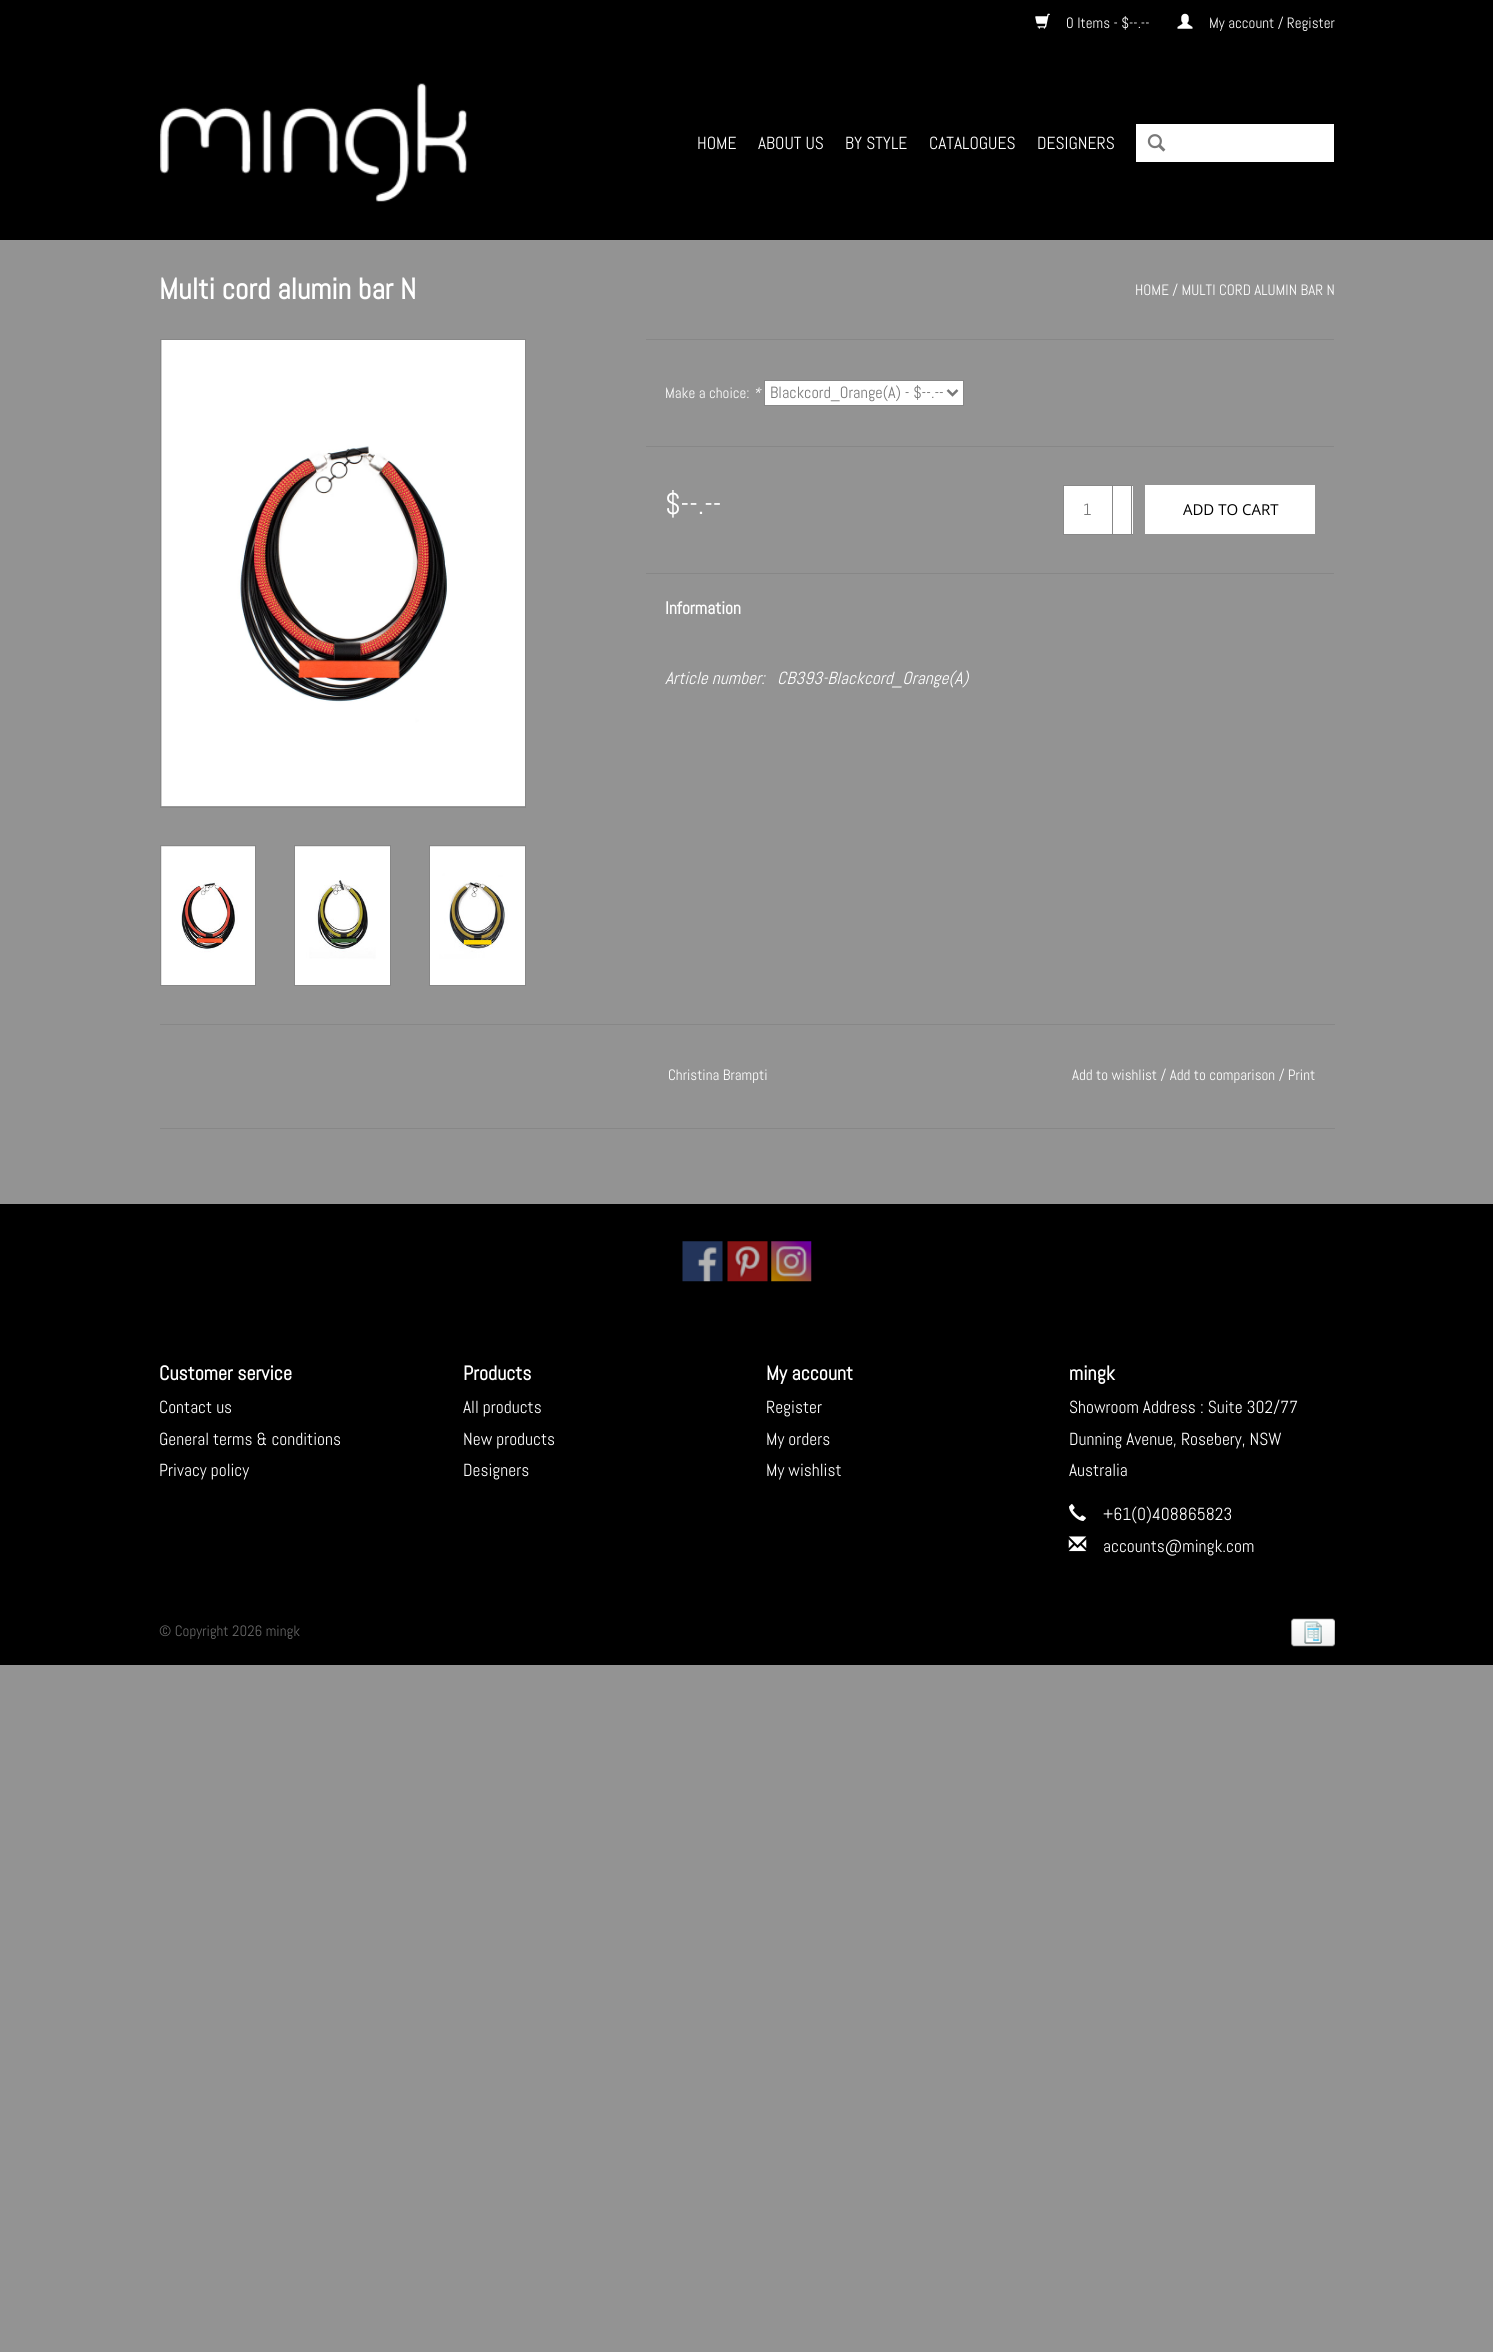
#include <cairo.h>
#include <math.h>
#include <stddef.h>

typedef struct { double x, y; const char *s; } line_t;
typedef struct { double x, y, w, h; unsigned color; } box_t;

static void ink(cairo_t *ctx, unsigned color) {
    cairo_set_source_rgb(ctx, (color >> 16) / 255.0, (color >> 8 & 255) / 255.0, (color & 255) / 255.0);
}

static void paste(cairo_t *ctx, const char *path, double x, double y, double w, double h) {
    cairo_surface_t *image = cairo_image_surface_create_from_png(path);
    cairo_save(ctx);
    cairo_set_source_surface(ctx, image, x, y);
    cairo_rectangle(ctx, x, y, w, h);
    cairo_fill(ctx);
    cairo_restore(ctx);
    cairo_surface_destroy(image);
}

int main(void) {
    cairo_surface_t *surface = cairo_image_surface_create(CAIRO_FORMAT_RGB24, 1493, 2352);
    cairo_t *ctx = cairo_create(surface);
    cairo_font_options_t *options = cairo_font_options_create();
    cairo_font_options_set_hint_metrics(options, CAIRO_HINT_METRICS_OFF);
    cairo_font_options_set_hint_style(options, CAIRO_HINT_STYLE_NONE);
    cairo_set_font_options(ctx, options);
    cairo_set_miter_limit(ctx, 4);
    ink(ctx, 0x939393);
    cairo_paint(ctx);
    ink(ctx, 0x000000);
    cairo_rectangle(ctx, 0, 0, 1493, 240);
    cairo_fill(ctx);
    paste(ctx, "media/1.png", 1035, 13, 15, 16);
    cairo_select_font_face(ctx, "Abel", CAIRO_FONT_SLANT_NORMAL, CAIRO_FONT_WEIGHT_NORMAL);
    cairo_set_font_size(ctx, 15);
    ink(ctx, 0xFFFFFF);
    cairo_move_to(ctx, 1066, 28);
    cairo_show_text(ctx, "0 Items - $--.--");
    paste(ctx, "media/2.png", 1177, 13, 16, 16);
    cairo_move_to(ctx, 1209, 28);
    cairo_show_text(ctx, "My account / Register");
    paste(ctx, "media/3.png", 160, 83, 307, 119);
    cairo_set_font_size(ctx, 17.5);
    {
        static const line_t items[] = {
            {697, 149, "HOME"},
            {758, 149, "ABOUT US"},
            {845, 149, "BY STYLE"},
            {929, 149, "CATALOGUES"},
            {1037, 149, "DESIGNERS"},
        };
        for (size_t i = 0; i < sizeof items / sizeof *items; i++) {
            cairo_move_to(ctx, items[i].x, items[i].y);
            cairo_show_text(ctx, items[i].s);
        }
    }
    cairo_rectangle(ctx, 1136, 124, 198, 38);
    cairo_fill(ctx);
    paste(ctx, "media/4.png", 1147, 134, 19, 18);
    cairo_select_font_face(ctx, "Abel", CAIRO_FONT_SLANT_NORMAL, CAIRO_FONT_WEIGHT_BOLD);
    cairo_set_font_size(ctx, 29.5);
    cairo_move_to(ctx, 159, 299);
    cairo_show_text(ctx, "Multi cord alumin bar N");
    cairo_select_font_face(ctx, "Abel", CAIRO_FONT_SLANT_NORMAL, CAIRO_FONT_WEIGHT_NORMAL);
    cairo_set_font_size(ctx, 15);
    cairo_move_to(ctx, 1135, 295);
    cairo_show_text(ctx, "HOME / MULTI CORD ALUMIN BAR N");
    cairo_rectangle(ctx, 160.5, 339.5, 365, 468);
    ink(ctx, 0x878787);
    cairo_set_line_width(ctx, 1);
    cairo_stroke(ctx);
    ink(ctx, 0x8E8E8E);
    cairo_rectangle(ctx, 161, 340, 1, 466);
    cairo_fill(ctx);
    paste(ctx, "media/5.png", 161, 340, 364, 467);
    cairo_rectangle(ctx, 160.5, 845.5, 95, 140);
    ink(ctx, 0x878787);
    cairo_stroke(ctx);
    ink(ctx, 0x8E8E8E);
    cairo_rectangle(ctx, 161, 846, 94, 139);
    cairo_fill(ctx);
    paste(ctx, "media/6.png", 161, 846, 94, 139);
    cairo_rectangle(ctx, 294.5, 845.5, 96, 140);
    ink(ctx, 0x878787);
    cairo_stroke(ctx);
    paste(ctx, "media/7.png", 295, 846, 95, 139);
    cairo_rectangle(ctx, 429.5, 845.5, 96, 140);
    cairo_stroke(ctx);
    paste(ctx, "media/8.png", 430, 846, 95, 139);
    cairo_rectangle(ctx, 646, 339, 688, 1);
    cairo_fill(ctx);
    ink(ctx, 0xFFFFFF);
    cairo_move_to(ctx, 665, 398);
    cairo_show_text(ctx, "Make a choice:");
    cairo_select_font_face(ctx, "Abel", CAIRO_FONT_SLANT_ITALIC, CAIRO_FONT_WEIGHT_NORMAL);
    cairo_move_to(ctx, 753, 398);
    cairo_show_text(ctx, "*");
    cairo_rectangle(ctx, 764.5, 380.5, 199, 25);
    cairo_fill_preserve(ctx);
    ink(ctx, 0x878787);
    cairo_stroke(ctx);
    cairo_new_path(ctx);
    cairo_move_to(ctx, 947.5, 390);
    cairo_line_to(ctx, 952.5, 395);
    cairo_line_to(ctx, 957.5, 390);
    ink(ctx, 0x777777);
    cairo_set_line_width(ctx, 2.5);
    cairo_stroke(ctx);
    cairo_select_font_face(ctx, "Abel", CAIRO_FONT_SLANT_NORMAL, CAIRO_FONT_WEIGHT_NORMAL);
    cairo_set_font_size(ctx, 16.25);
    cairo_move_to(ctx, 770, 398);
    cairo_show_text(ctx, "Blackcord_Orange(A) - $--.--");
    ink(ctx, 0x878787);
    cairo_rectangle(ctx, 646, 446, 688, 1);
    cairo_fill(ctx);
    cairo_set_font_size(ctx, 30);
    ink(ctx, 0xFFFFFF);
    cairo_move_to(ctx, 665, 514);
    cairo_show_text(ctx, "$--.--");
    cairo_rectangle(ctx, 1063.5, 485.5, 49, 49);
    cairo_fill_preserve(ctx);
    ink(ctx, 0x878787);
    cairo_set_line_width(ctx, 1);
    cairo_stroke(ctx);
    cairo_set_font_size(ctx, 16.25);
    ink(ctx, 0x777777);
    cairo_move_to(ctx, 1083, 515);
    cairo_show_text(ctx, "1");
    {
        static const box_t items[] = {
            {1113, 486, 20, 48, 0xFFFFFF},
            {1113, 485, 20, 1, 0x878787},
            {1131, 485, 1, 50, 0x878787},
            {1113, 534, 20, 1, 0x878787},
            {1145, 485, 170, 49, 0xFFFFFF},
        };
        for (size_t i = 0; i < sizeof items / sizeof *items; i++) {
            ink(ctx, items[i].color);
            cairo_rectangle(ctx, items[i].x, items[i].y, items[i].w, items[i].h);
            cairo_fill(ctx);
        }
    }
    cairo_select_font_face(ctx, "Open Sans", CAIRO_FONT_SLANT_NORMAL, CAIRO_FONT_WEIGHT_NORMAL);
    cairo_set_font_size(ctx, 15);
    ink(ctx, 0x000000);
    cairo_move_to(ctx, 1183, 515);
    cairo_show_text(ctx, "ADD TO CART");
    ink(ctx, 0x878787);
    cairo_rectangle(ctx, 646, 573, 688, 1);
    cairo_fill(ctx);
    cairo_select_font_face(ctx, "Abel", CAIRO_FONT_SLANT_NORMAL, CAIRO_FONT_WEIGHT_BOLD);
    cairo_set_font_size(ctx, 17.5);
    ink(ctx, 0xFFFFFF);
    cairo_move_to(ctx, 665, 614);
    cairo_show_text(ctx, "Information");
    cairo_select_font_face(ctx, "Abel", CAIRO_FONT_SLANT_ITALIC, CAIRO_FONT_WEIGHT_NORMAL);
    cairo_move_to(ctx, 665, 684);
    cairo_show_text(ctx, "Article number:");
    cairo_move_to(ctx, 777, 684);
    cairo_show_text(ctx, "CB393-Blackcord_Orange(A)");
    ink(ctx, 0x878787);
    cairo_rectangle(ctx, 160, 1024, 1175, 1);
    cairo_fill(ctx);
    cairo_rectangle(ctx, 160, 1128, 1175, 1);
    cairo_fill(ctx);
    cairo_select_font_face(ctx, "Abel", CAIRO_FONT_SLANT_NORMAL, CAIRO_FONT_WEIGHT_NORMAL);
    cairo_set_font_size(ctx, 15);
    ink(ctx, 0xFFFFFF);
    cairo_move_to(ctx, 668, 1080);
    cairo_show_text(ctx, "Christina Brampti");
    cairo_move_to(ctx, 1072, 1080);
    cairo_show_text(ctx, "Add to wishlist / Add to comparison / Print");
    ink(ctx, 0x000000);
    cairo_rectangle(ctx, 0, 1204, 1493, 461);
    cairo_fill(ctx);
    paste(ctx, "media/9.png", 682, 1241, 41, 41);
    paste(ctx, "media/10.png", 727, 1241, 41, 41);
    paste(ctx, "media/11.png", 771, 1241, 41, 41);
    cairo_select_font_face(ctx, "Abel", CAIRO_FONT_SLANT_NORMAL, CAIRO_FONT_WEIGHT_BOLD);
    cairo_set_font_size(ctx, 20);
    ink(ctx, 0xFFFFFF);
    cairo_move_to(ctx, 159, 1380);
    cairo_show_text(ctx, "Customer service");
    cairo_select_font_face(ctx, "Abel", CAIRO_FONT_SLANT_NORMAL, CAIRO_FONT_WEIGHT_NORMAL);
    cairo_set_font_size(ctx, 17.5);
    {
        static const line_t items[] = {
            {159, 1413, "Contact us"},
            {159, 1445, "General terms & conditions"},
            {159, 1476, "Privacy policy"},
        };
        for (size_t i = 0; i < sizeof items / sizeof *items; i++) {
            cairo_move_to(ctx, items[i].x, items[i].y);
            cairo_show_text(ctx, items[i].s);
        }
    }
    cairo_select_font_face(ctx, "Abel", CAIRO_FONT_SLANT_NORMAL, CAIRO_FONT_WEIGHT_BOLD);
    cairo_set_font_size(ctx, 20);
    cairo_move_to(ctx, 463, 1380);
    cairo_show_text(ctx, "Products");
    cairo_select_font_face(ctx, "Abel", CAIRO_FONT_SLANT_NORMAL, CAIRO_FONT_WEIGHT_NORMAL);
    cairo_set_font_size(ctx, 17.5);
    {
        static const line_t items[] = {
            {463, 1413, "All products"},
            {463, 1445, "New products"},
            {463, 1476, "Designers"},
        };
        for (size_t i = 0; i < sizeof items / sizeof *items; i++) {
            cairo_move_to(ctx, items[i].x, items[i].y);
            cairo_show_text(ctx, items[i].s);
        }
    }
    cairo_select_font_face(ctx, "Abel", CAIRO_FONT_SLANT_NORMAL, CAIRO_FONT_WEIGHT_BOLD);
    cairo_set_font_size(ctx, 20);
    cairo_move_to(ctx, 766, 1380);
    cairo_show_text(ctx, "My account");
    cairo_select_font_face(ctx, "Abel", CAIRO_FONT_SLANT_NORMAL, CAIRO_FONT_WEIGHT_NORMAL);
    cairo_set_font_size(ctx, 17.5);
    {
        static const line_t items[] = {
            {766, 1413, "Register"},
            {766, 1445, "My orders"},
            {766, 1476, "My wishlist"},
        };
        for (size_t i = 0; i < sizeof items / sizeof *items; i++) {
            cairo_move_to(ctx, items[i].x, items[i].y);
            cairo_show_text(ctx, items[i].s);
        }
    }
    cairo_select_font_face(ctx, "Abel", CAIRO_FONT_SLANT_NORMAL, CAIRO_FONT_WEIGHT_BOLD);
    cairo_set_font_size(ctx, 20);
    cairo_move_to(ctx, 1069, 1380);
    cairo_show_text(ctx, "mingk");
    cairo_select_font_face(ctx, "Abel", CAIRO_FONT_SLANT_NORMAL, CAIRO_FONT_WEIGHT_NORMAL);
    cairo_set_font_size(ctx, 17.5);
    {
        static const line_t items[] = {
            {1069, 1413, "Showroom Address : Suite 302/77"},
            {1069, 1445, "Dunning Avenue, Rosebery, NSW"},
            {1069, 1476, "Australia"},
        };
        for (size_t i = 0; i < sizeof items / sizeof *items; i++) {
            cairo_move_to(ctx, items[i].x, items[i].y);
            cairo_show_text(ctx, items[i].s);
        }
    }
    paste(ctx, "media/12.png", 1069, 1504, 17, 17);
    cairo_move_to(ctx, 1103, 1520);
    cairo_show_text(ctx, "+61(0)408865823");
    paste(ctx, "media/13.png", 1068, 1536, 19, 16);
    cairo_move_to(ctx, 1103, 1552);
    cairo_show_text(ctx, "accounts@mingk.com");
    cairo_set_font_size(ctx, 15);
    ink(ctx, 0x666666);
    cairo_move_to(ctx, 159, 1636);
    cairo_show_text(ctx, "© Copyright 2026 mingk");
    paste(ctx, "media/14.png", 1291, 1618, 44, 29);
    cairo_surface_write_to_png(surface, "image.png");
    cairo_font_options_destroy(options);
    cairo_destroy(ctx);
    cairo_surface_destroy(surface);
    return 0;
}
